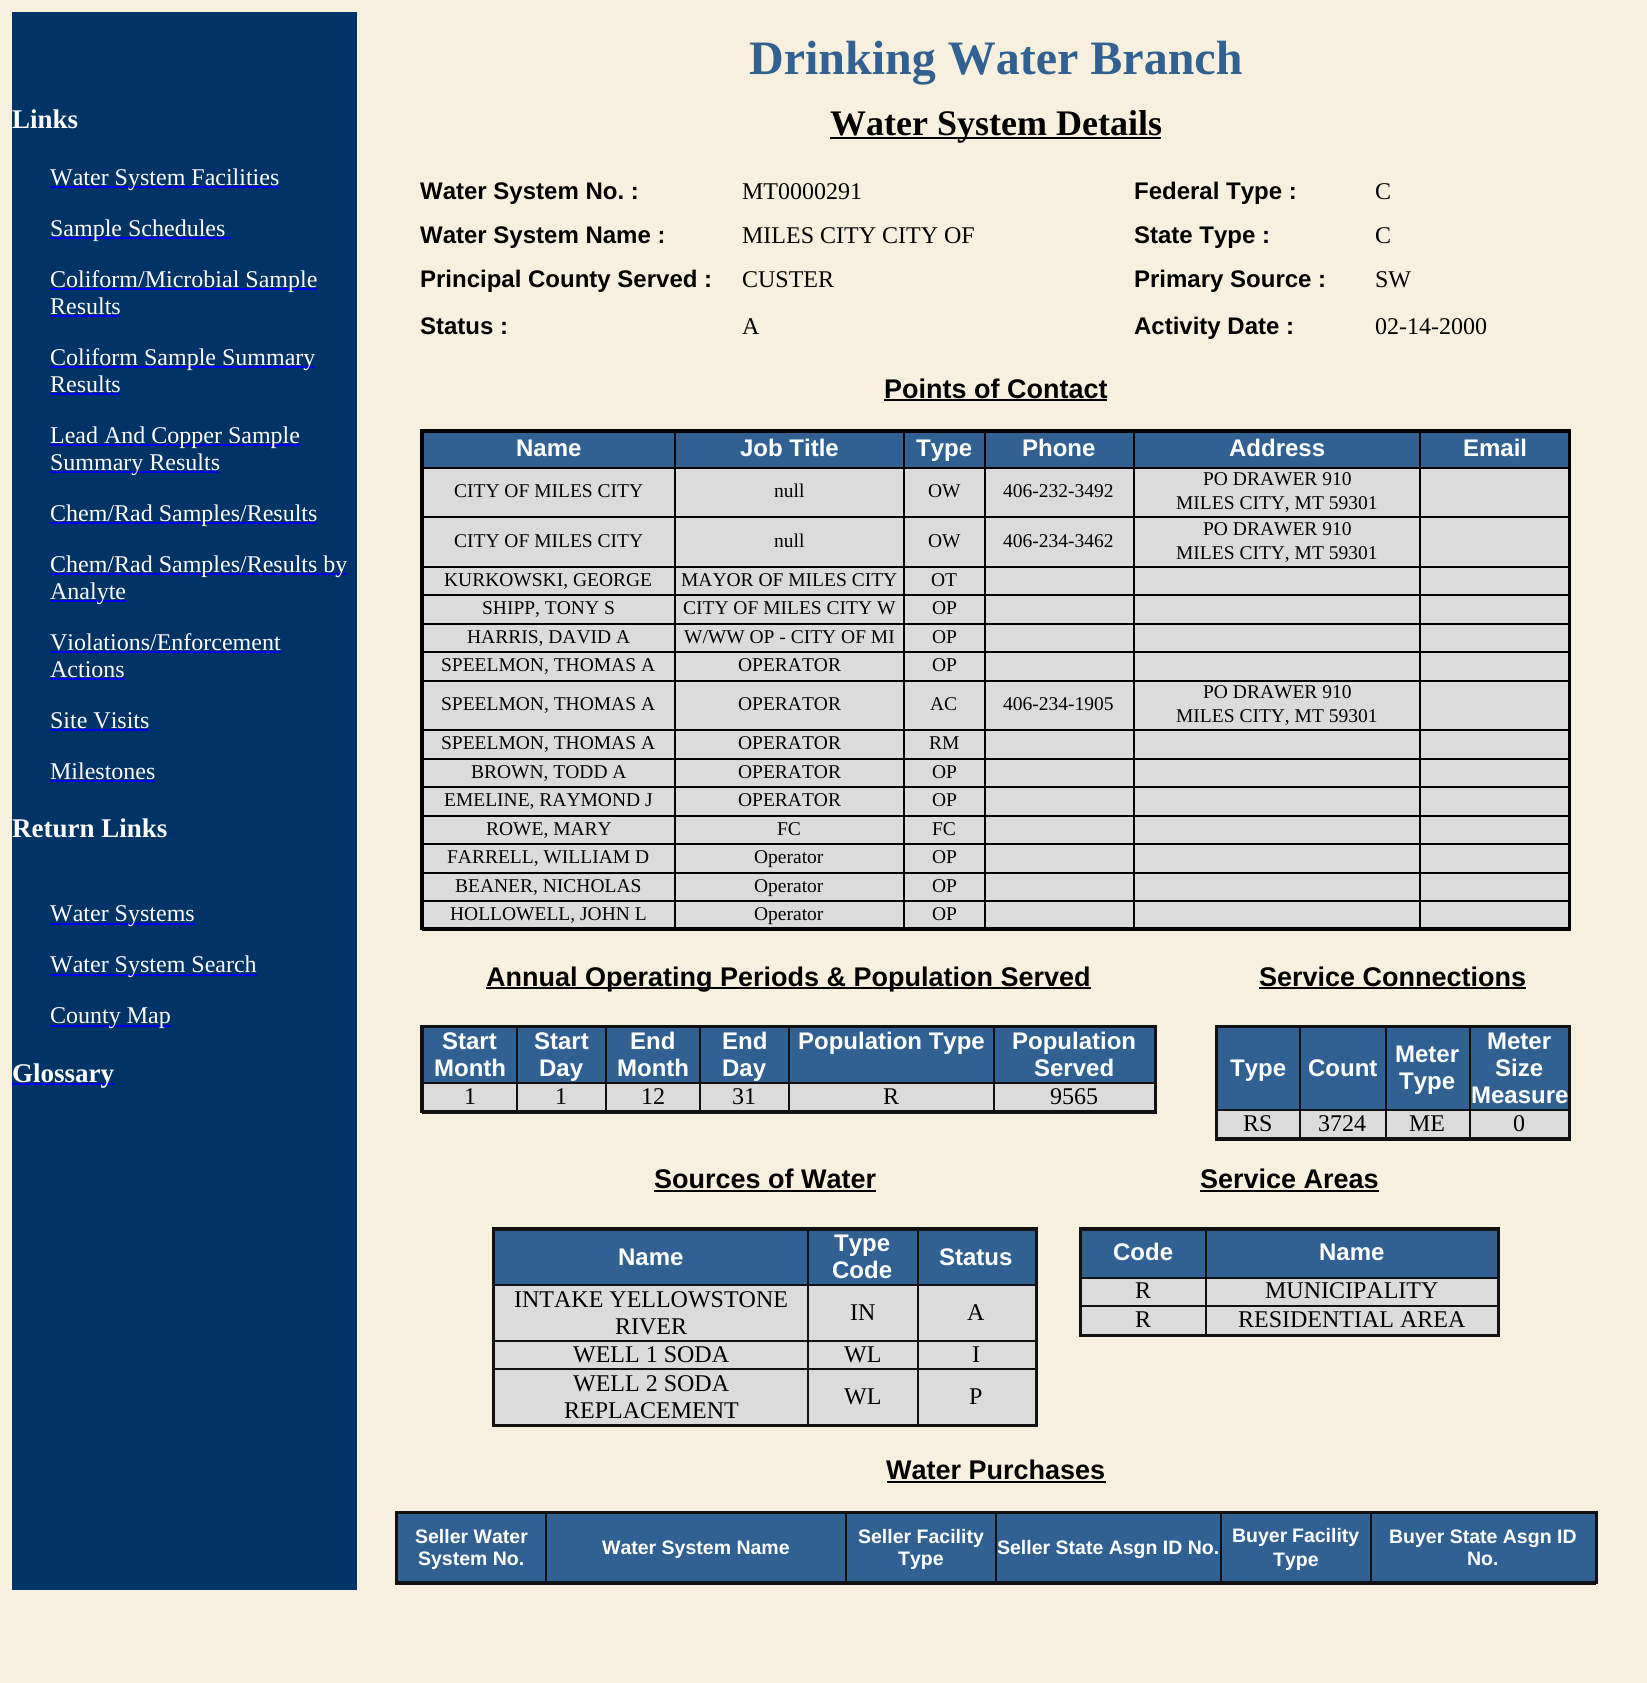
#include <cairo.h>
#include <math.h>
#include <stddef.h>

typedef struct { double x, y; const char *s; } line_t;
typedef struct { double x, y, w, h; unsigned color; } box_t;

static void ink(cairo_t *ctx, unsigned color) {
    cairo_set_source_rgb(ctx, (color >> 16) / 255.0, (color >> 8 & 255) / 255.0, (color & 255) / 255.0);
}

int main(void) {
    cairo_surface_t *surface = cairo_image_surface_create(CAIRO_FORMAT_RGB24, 1647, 1683);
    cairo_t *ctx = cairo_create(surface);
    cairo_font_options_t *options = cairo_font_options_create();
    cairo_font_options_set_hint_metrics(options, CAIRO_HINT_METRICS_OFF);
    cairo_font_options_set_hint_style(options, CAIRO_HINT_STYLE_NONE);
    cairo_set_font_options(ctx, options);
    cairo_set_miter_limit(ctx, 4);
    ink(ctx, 0xF7F0DE);
    cairo_paint(ctx);
    ink(ctx, 0x003366);
    cairo_rectangle(ctx, 12, 12, 345, 1578);
    cairo_fill(ctx);
    cairo_select_font_face(ctx, "Liberation Serif", CAIRO_FONT_SLANT_NORMAL, CAIRO_FONT_WEIGHT_BOLD);
    cairo_set_font_size(ctx, 48);
    ink(ctx, 0x306192);
    cairo_move_to(ctx, 749, 74);
    cairo_show_text(ctx, "Drinking Water Branch");
    cairo_set_font_size(ctx, 27);
    ink(ctx, 0xFFFFFF);
    cairo_move_to(ctx, 12, 128);
    cairo_show_text(ctx, "Links");
    ink(ctx, 0x0000EE);
    cairo_rectangle(ctx, 50, 186, 229, 2);
    cairo_fill(ctx);
    cairo_select_font_face(ctx, "Liberation Serif", CAIRO_FONT_SLANT_NORMAL, CAIRO_FONT_WEIGHT_NORMAL);
    cairo_set_font_size(ctx, 24);
    ink(ctx, 0xFFFFFF);
    cairo_move_to(ctx, 50, 185);
    cairo_show_text(ctx, "Water System Facilities");
    ink(ctx, 0x0000EE);
    cairo_rectangle(ctx, 50, 237, 181, 2);
    cairo_fill(ctx);
    ink(ctx, 0xFFFFFF);
    cairo_move_to(ctx, 50, 236);
    cairo_show_text(ctx, "Sample Schedules");
    ink(ctx, 0x0000EE);
    cairo_rectangle(ctx, 50, 288, 267, 2);
    cairo_fill(ctx);
    ink(ctx, 0xFFFFFF);
    cairo_move_to(ctx, 50, 287);
    cairo_show_text(ctx, "Coliform/Microbial Sample");
    cairo_move_to(ctx, 50, 314);
    cairo_show_text(ctx, "Results");
    ink(ctx, 0x0000EE);
    cairo_rectangle(ctx, 50, 315, 70, 2);
    cairo_fill(ctx);
    cairo_rectangle(ctx, 50, 366, 265, 2);
    cairo_fill(ctx);
    ink(ctx, 0xFFFFFF);
    cairo_move_to(ctx, 50, 365);
    cairo_show_text(ctx, "Coliform Sample Summary");
    cairo_move_to(ctx, 50, 392);
    cairo_show_text(ctx, "Results");
    ink(ctx, 0x0000EE);
    cairo_rectangle(ctx, 50, 393, 70, 2);
    cairo_fill(ctx);
    cairo_rectangle(ctx, 50, 444, 250, 2);
    cairo_fill(ctx);
    ink(ctx, 0xFFFFFF);
    cairo_move_to(ctx, 50, 443);
    cairo_show_text(ctx, "Lead And Copper Sample");
    ink(ctx, 0x0000EE);
    cairo_rectangle(ctx, 50, 471, 169, 2);
    cairo_fill(ctx);
    ink(ctx, 0xFFFFFF);
    cairo_move_to(ctx, 50, 470);
    cairo_show_text(ctx, "Summary Results");
    ink(ctx, 0x0000EE);
    cairo_rectangle(ctx, 50, 522, 267, 2);
    cairo_fill(ctx);
    ink(ctx, 0xFFFFFF);
    cairo_move_to(ctx, 50, 521);
    cairo_show_text(ctx, "Chem/Rad Samples/Results");
    ink(ctx, 0x0000EE);
    cairo_rectangle(ctx, 50, 573, 297, 2);
    cairo_fill(ctx);
    ink(ctx, 0xFFFFFF);
    cairo_move_to(ctx, 50, 572);
    cairo_show_text(ctx, "Chem/Rad Samples/Results by");
    ink(ctx, 0x0000EE);
    cairo_rectangle(ctx, 50, 600, 76, 2);
    cairo_fill(ctx);
    ink(ctx, 0xFFFFFF);
    cairo_move_to(ctx, 50, 599);
    cairo_show_text(ctx, "Analyte");
    cairo_move_to(ctx, 50, 650);
    cairo_show_text(ctx, "Violations/Enforcement");
    ink(ctx, 0x0000EE);
    cairo_rectangle(ctx, 50, 651, 231, 2);
    cairo_fill(ctx);
    ink(ctx, 0xFFFFFF);
    cairo_move_to(ctx, 50, 677);
    cairo_show_text(ctx, "Actions");
    ink(ctx, 0x0000EE);
    cairo_rectangle(ctx, 50, 678, 75, 2);
    cairo_fill(ctx);
    ink(ctx, 0xFFFFFF);
    cairo_move_to(ctx, 50, 728);
    cairo_show_text(ctx, "Site Visits");
    ink(ctx, 0x0000EE);
    cairo_rectangle(ctx, 50, 729, 99, 2);
    cairo_fill(ctx);
    ink(ctx, 0xFFFFFF);
    cairo_move_to(ctx, 50, 779);
    cairo_show_text(ctx, "Milestones");
    ink(ctx, 0x0000EE);
    cairo_rectangle(ctx, 50, 780, 105, 2);
    cairo_fill(ctx);
    cairo_select_font_face(ctx, "Liberation Serif", CAIRO_FONT_SLANT_NORMAL, CAIRO_FONT_WEIGHT_BOLD);
    cairo_set_font_size(ctx, 27);
    ink(ctx, 0xFFFFFF);
    cairo_move_to(ctx, 12, 837);
    cairo_show_text(ctx, "Return Links");
    ink(ctx, 0x0000EE);
    cairo_rectangle(ctx, 50, 923, 145, 2);
    cairo_fill(ctx);
    cairo_select_font_face(ctx, "Liberation Serif", CAIRO_FONT_SLANT_NORMAL, CAIRO_FONT_WEIGHT_NORMAL);
    cairo_set_font_size(ctx, 24);
    ink(ctx, 0xFFFFFF);
    cairo_move_to(ctx, 50, 921);
    cairo_show_text(ctx, "Water Systems");
    ink(ctx, 0x0000EE);
    cairo_rectangle(ctx, 50, 974, 207, 2);
    cairo_fill(ctx);
    ink(ctx, 0xFFFFFF);
    cairo_move_to(ctx, 50, 972);
    cairo_show_text(ctx, "Water System Search");
    ink(ctx, 0x0000EE);
    cairo_rectangle(ctx, 50, 1025, 121, 2);
    cairo_fill(ctx);
    ink(ctx, 0xFFFFFF);
    cairo_move_to(ctx, 50, 1023);
    cairo_show_text(ctx, "County Map");
    ink(ctx, 0x0000EE);
    cairo_rectangle(ctx, 12, 1083, 102, 2);
    cairo_fill(ctx);
    cairo_select_font_face(ctx, "Liberation Serif", CAIRO_FONT_SLANT_NORMAL, CAIRO_FONT_WEIGHT_BOLD);
    cairo_set_font_size(ctx, 27);
    ink(ctx, 0xFFFFFF);
    cairo_move_to(ctx, 12, 1082);
    cairo_show_text(ctx, "Glossary");
    ink(ctx, 0x000000);
    cairo_rectangle(ctx, 830, 137, 331, 2);
    cairo_fill(ctx);
    cairo_set_font_size(ctx, 36);
    cairo_move_to(ctx, 830, 135);
    cairo_show_text(ctx, "Water System Details");
    cairo_select_font_face(ctx, "Liberation Sans", CAIRO_FONT_SLANT_NORMAL, CAIRO_FONT_WEIGHT_BOLD);
    cairo_set_font_size(ctx, 24);
    cairo_move_to(ctx, 420, 199);
    cairo_show_text(ctx, "Water System No. :");
    cairo_select_font_face(ctx, "Liberation Serif", CAIRO_FONT_SLANT_NORMAL, CAIRO_FONT_WEIGHT_NORMAL);
    cairo_move_to(ctx, 742, 199);
    cairo_show_text(ctx, "MT0000291");
    cairo_select_font_face(ctx, "Liberation Sans", CAIRO_FONT_SLANT_NORMAL, CAIRO_FONT_WEIGHT_BOLD);
    cairo_move_to(ctx, 1134, 199);
    cairo_show_text(ctx, "Federal Type :");
    cairo_select_font_face(ctx, "Liberation Serif", CAIRO_FONT_SLANT_NORMAL, CAIRO_FONT_WEIGHT_NORMAL);
    cairo_move_to(ctx, 1375, 199);
    cairo_show_text(ctx, "C");
    cairo_select_font_face(ctx, "Liberation Sans", CAIRO_FONT_SLANT_NORMAL, CAIRO_FONT_WEIGHT_BOLD);
    cairo_move_to(ctx, 420, 243);
    cairo_show_text(ctx, "Water System Name :");
    cairo_select_font_face(ctx, "Liberation Serif", CAIRO_FONT_SLANT_NORMAL, CAIRO_FONT_WEIGHT_NORMAL);
    cairo_move_to(ctx, 742, 243);
    cairo_show_text(ctx, "MILES CITY CITY OF");
    cairo_select_font_face(ctx, "Liberation Sans", CAIRO_FONT_SLANT_NORMAL, CAIRO_FONT_WEIGHT_BOLD);
    cairo_move_to(ctx, 1134, 243);
    cairo_show_text(ctx, "State Type :");
    cairo_select_font_face(ctx, "Liberation Serif", CAIRO_FONT_SLANT_NORMAL, CAIRO_FONT_WEIGHT_NORMAL);
    cairo_move_to(ctx, 1375, 243);
    cairo_show_text(ctx, "C");
    cairo_select_font_face(ctx, "Liberation Sans", CAIRO_FONT_SLANT_NORMAL, CAIRO_FONT_WEIGHT_BOLD);
    cairo_move_to(ctx, 420, 287);
    cairo_show_text(ctx, "Principal County Served :");
    cairo_select_font_face(ctx, "Liberation Serif", CAIRO_FONT_SLANT_NORMAL, CAIRO_FONT_WEIGHT_NORMAL);
    cairo_move_to(ctx, 742, 287);
    cairo_show_text(ctx, "CUSTER");
    cairo_select_font_face(ctx, "Liberation Sans", CAIRO_FONT_SLANT_NORMAL, CAIRO_FONT_WEIGHT_BOLD);
    cairo_move_to(ctx, 1134, 287);
    cairo_show_text(ctx, "Primary Source :");
    cairo_select_font_face(ctx, "Liberation Serif", CAIRO_FONT_SLANT_NORMAL, CAIRO_FONT_WEIGHT_NORMAL);
    cairo_move_to(ctx, 1375, 287);
    cairo_show_text(ctx, "SW");
    cairo_select_font_face(ctx, "Liberation Sans", CAIRO_FONT_SLANT_NORMAL, CAIRO_FONT_WEIGHT_BOLD);
    cairo_move_to(ctx, 420, 334);
    cairo_show_text(ctx, "Status :");
    cairo_select_font_face(ctx, "Liberation Serif", CAIRO_FONT_SLANT_NORMAL, CAIRO_FONT_WEIGHT_NORMAL);
    cairo_move_to(ctx, 742, 334);
    cairo_show_text(ctx, "A");
    cairo_select_font_face(ctx, "Liberation Sans", CAIRO_FONT_SLANT_NORMAL, CAIRO_FONT_WEIGHT_BOLD);
    cairo_move_to(ctx, 1134, 334);
    cairo_show_text(ctx, "Activity Date :");
    cairo_select_font_face(ctx, "Liberation Serif", CAIRO_FONT_SLANT_NORMAL, CAIRO_FONT_WEIGHT_NORMAL);
    cairo_move_to(ctx, 1375, 334);
    cairo_show_text(ctx, "02-14-2000");
    cairo_select_font_face(ctx, "Liberation Sans", CAIRO_FONT_SLANT_NORMAL, CAIRO_FONT_WEIGHT_BOLD);
    cairo_set_font_size(ctx, 27);
    cairo_move_to(ctx, 884, 398);
    cairo_show_text(ctx, "Points of Contact");
    {
        static const box_t items[] = {
            {884, 399, 223, 2, 0x000000},
            {1419, 432, 152, 1, 0x000000},
            {1419, 467, 152, 2, 0x000000},
            {1419, 516, 152, 2, 0x000000},
            {1419, 566, 152, 2, 0x000000},
            {1419, 594, 152, 2, 0x000000},
            {1419, 623, 152, 2, 0x000000},
            {1419, 651, 152, 2, 0x000000},
            {1419, 680, 152, 2, 0x000000},
            {1419, 729, 152, 2, 0x000000},
            {1419, 758, 152, 2, 0x000000},
            {1419, 786, 152, 2, 0x000000},
            {1419, 815, 152, 2, 0x000000},
            {1419, 843, 152, 2, 0x000000},
            {1419, 872, 152, 2, 0x000000},
            {1419, 900, 152, 2, 0x000000},
            {1419, 900, 2, 30, 0x000000},
            {1133, 900, 288, 2, 0x000000},
            {1419, 872, 2, 30, 0x000000},
            {1133, 872, 288, 2, 0x000000},
            {1419, 843, 2, 30, 0x000000},
            {1133, 843, 288, 2, 0x000000},
            {1419, 815, 2, 30, 0x000000},
            {1133, 815, 288, 2, 0x000000},
            {1419, 786, 2, 30, 0x000000},
            {1133, 786, 288, 2, 0x000000},
            {1419, 758, 2, 30, 0x000000},
            {1133, 758, 288, 2, 0x000000},
            {1419, 729, 2, 30, 0x000000},
            {1133, 729, 288, 2, 0x000000},
            {1419, 680, 2, 51, 0x000000},
            {1133, 680, 288, 2, 0x000000},
            {1419, 651, 2, 30, 0x000000},
            {1133, 651, 288, 2, 0x000000},
            {1419, 623, 2, 30, 0x000000},
            {1133, 623, 288, 2, 0x000000},
            {1419, 594, 2, 30, 0x000000},
            {1133, 594, 288, 2, 0x000000},
            {1419, 566, 2, 30, 0x000000},
            {1133, 566, 288, 2, 0x000000},
            {1419, 516, 2, 51, 0x000000},
            {1133, 516, 288, 2, 0x000000},
            {1419, 467, 2, 51, 0x000000},
            {1133, 467, 288, 2, 0x000000},
            {1419, 431, 2, 37, 0x000000},
            {1133, 432, 288, 1, 0x000000},
            {1133, 900, 2, 30, 0x000000},
            {984, 900, 150, 2, 0x000000},
            {1133, 872, 2, 30, 0x000000},
            {984, 872, 150, 2, 0x000000},
            {1133, 843, 2, 30, 0x000000},
            {984, 843, 150, 2, 0x000000},
            {1133, 815, 2, 30, 0x000000},
            {984, 815, 150, 2, 0x000000},
            {1133, 786, 2, 30, 0x000000},
            {984, 786, 150, 2, 0x000000},
            {1133, 758, 2, 30, 0x000000},
            {984, 758, 150, 2, 0x000000},
            {1133, 729, 2, 30, 0x000000},
            {984, 729, 150, 2, 0x000000},
            {1133, 680, 2, 51, 0x000000},
            {984, 680, 150, 2, 0x000000},
            {1133, 651, 2, 30, 0x000000},
            {984, 651, 150, 2, 0x000000},
            {1133, 623, 2, 30, 0x000000},
            {984, 623, 150, 2, 0x000000},
            {1133, 594, 2, 30, 0x000000},
            {984, 594, 150, 2, 0x000000},
            {1133, 566, 2, 30, 0x000000},
            {984, 566, 150, 2, 0x000000},
            {1133, 516, 2, 51, 0x000000},
            {984, 516, 150, 2, 0x000000},
            {1133, 467, 2, 51, 0x000000},
            {984, 467, 150, 2, 0x000000},
            {1133, 431, 2, 37, 0x000000},
            {984, 432, 150, 1, 0x000000},
            {984, 900, 2, 30, 0x000000},
            {903, 900, 83, 2, 0x000000},
            {984, 872, 2, 30, 0x000000},
            {903, 872, 83, 2, 0x000000},
            {984, 843, 2, 30, 0x000000},
            {903, 843, 83, 2, 0x000000},
            {984, 815, 2, 30, 0x000000},
            {903, 815, 83, 2, 0x000000},
            {984, 786, 2, 30, 0x000000},
            {903, 786, 83, 2, 0x000000},
            {984, 758, 2, 30, 0x000000},
            {903, 758, 83, 2, 0x000000},
            {984, 729, 2, 30, 0x000000},
            {903, 729, 83, 2, 0x000000},
            {984, 680, 2, 51, 0x000000},
            {903, 680, 83, 2, 0x000000},
            {984, 651, 2, 30, 0x000000},
            {903, 651, 83, 2, 0x000000},
            {984, 623, 2, 30, 0x000000},
            {903, 623, 83, 2, 0x000000},
            {984, 594, 2, 30, 0x000000},
            {903, 594, 83, 2, 0x000000},
            {984, 566, 2, 30, 0x000000},
            {903, 566, 83, 2, 0x000000},
            {984, 516, 2, 51, 0x000000},
            {903, 516, 83, 2, 0x000000},
            {984, 467, 2, 51, 0x000000},
            {903, 467, 83, 2, 0x000000},
            {984, 431, 2, 37, 0x000000},
            {903, 432, 83, 1, 0x000000},
            {903, 900, 2, 30, 0x000000},
            {674, 900, 231, 2, 0x000000},
            {903, 872, 2, 30, 0x000000},
            {674, 872, 231, 2, 0x000000},
            {903, 843, 2, 30, 0x000000},
            {674, 843, 231, 2, 0x000000},
            {903, 815, 2, 30, 0x000000},
            {674, 815, 231, 2, 0x000000},
            {903, 786, 2, 30, 0x000000},
            {674, 786, 231, 2, 0x000000},
            {903, 758, 2, 30, 0x000000},
            {674, 758, 231, 2, 0x000000},
            {903, 729, 2, 30, 0x000000},
            {674, 729, 231, 2, 0x000000},
            {903, 680, 2, 51, 0x000000},
            {674, 680, 231, 2, 0x000000},
            {903, 651, 2, 30, 0x000000},
            {674, 651, 231, 2, 0x000000},
            {903, 623, 2, 30, 0x000000},
            {674, 623, 231, 2, 0x000000},
            {903, 594, 2, 30, 0x000000},
            {674, 594, 231, 2, 0x000000},
            {903, 566, 2, 30, 0x000000},
            {674, 566, 231, 2, 0x000000},
            {903, 516, 2, 51, 0x000000},
            {674, 516, 231, 2, 0x000000},
            {903, 467, 2, 51, 0x000000},
            {674, 467, 231, 2, 0x000000},
            {903, 431, 2, 37, 0x000000},
            {674, 432, 231, 1, 0x000000},
            {674, 900, 2, 30, 0x000000},
            {422, 900, 253, 2, 0x000000},
            {674, 872, 2, 30, 0x000000},
            {422, 872, 253, 2, 0x000000},
            {674, 843, 2, 30, 0x000000},
            {422, 843, 253, 2, 0x000000},
            {674, 815, 2, 30, 0x000000},
            {422, 815, 253, 2, 0x000000},
            {674, 786, 2, 30, 0x000000},
            {422, 786, 253, 2, 0x000000},
            {674, 758, 2, 30, 0x000000},
            {422, 758, 253, 2, 0x000000},
            {674, 729, 2, 30, 0x000000},
            {422, 729, 253, 2, 0x000000},
            {674, 680, 2, 51, 0x000000},
            {422, 680, 253, 2, 0x000000},
            {674, 651, 2, 30, 0x000000},
            {422, 651, 253, 2, 0x000000},
            {674, 623, 2, 30, 0x000000},
            {422, 623, 253, 2, 0x000000},
            {674, 594, 2, 30, 0x000000},
            {422, 594, 253, 2, 0x000000},
            {674, 566, 2, 30, 0x000000},
            {422, 566, 253, 2, 0x000000},
            {674, 516, 2, 51, 0x000000},
            {422, 516, 253, 2, 0x000000},
            {674, 467, 2, 51, 0x000000},
            {422, 467, 253, 2, 0x000000},
            {674, 431, 2, 37, 0x000000},
            {422, 432, 253, 1, 0x000000},
            {423, 900, 1, 30, 0x000000},
            {423, 872, 1, 30, 0x000000},
            {423, 843, 1, 30, 0x000000},
            {423, 815, 1, 30, 0x000000},
            {423, 786, 1, 30, 0x000000},
            {423, 758, 1, 30, 0x000000},
            {423, 729, 1, 30, 0x000000},
            {423, 680, 1, 51, 0x000000},
            {423, 651, 1, 30, 0x000000},
            {423, 623, 1, 30, 0x000000},
            {423, 594, 1, 30, 0x000000},
            {423, 566, 1, 30, 0x000000},
            {423, 516, 1, 51, 0x000000},
            {423, 467, 1, 51, 0x000000},
            {423, 431, 1, 37, 0x000000},
            {420, 429, 1151, 3, 0x000000},
            {1568, 429, 3, 501, 0x000000},
            {420, 927, 1151, 3, 0x000000},
            {420, 429, 3, 501, 0x000000},
            {424, 433, 250, 34, 0x306192},
        };
        for (size_t i = 0; i < sizeof items / sizeof *items; i++) {
            ink(ctx, items[i].color);
            cairo_rectangle(ctx, items[i].x, items[i].y, items[i].w, items[i].h);
            cairo_fill(ctx);
        }
    }
    cairo_set_font_size(ctx, 24);
    ink(ctx, 0xFFFFFF);
    cairo_move_to(ctx, 516, 456);
    cairo_show_text(ctx, "Name");
    ink(ctx, 0x306192);
    cairo_rectangle(ctx, 676, 433, 227, 34);
    cairo_fill(ctx);
    ink(ctx, 0xFFFFFF);
    cairo_move_to(ctx, 740, 456);
    cairo_show_text(ctx, "Job Title");
    ink(ctx, 0x306192);
    cairo_rectangle(ctx, 905, 433, 79, 34);
    cairo_fill(ctx);
    ink(ctx, 0xFFFFFF);
    cairo_move_to(ctx, 916, 456);
    cairo_show_text(ctx, "Type");
    ink(ctx, 0x306192);
    cairo_rectangle(ctx, 986, 433, 147, 34);
    cairo_fill(ctx);
    ink(ctx, 0xFFFFFF);
    cairo_move_to(ctx, 1022, 456);
    cairo_show_text(ctx, "Phone");
    ink(ctx, 0x306192);
    cairo_rectangle(ctx, 1135, 433, 284, 34);
    cairo_fill(ctx);
    ink(ctx, 0xFFFFFF);
    cairo_move_to(ctx, 1229, 456);
    cairo_show_text(ctx, "Address");
    ink(ctx, 0x306192);
    cairo_rectangle(ctx, 1421, 433, 147, 34);
    cairo_fill(ctx);
    ink(ctx, 0xFFFFFF);
    cairo_move_to(ctx, 1463, 456);
    cairo_show_text(ctx, "Email");
    ink(ctx, 0xDBDBDB);
    cairo_rectangle(ctx, 424, 469, 250, 47);
    cairo_fill(ctx);
    cairo_select_font_face(ctx, "Liberation Serif", CAIRO_FONT_SLANT_NORMAL, CAIRO_FONT_WEIGHT_NORMAL);
    cairo_set_font_size(ctx, 19.5);
    ink(ctx, 0x000000);
    cairo_move_to(ctx, 454, 497);
    cairo_show_text(ctx, "CITY OF MILES CITY");
    ink(ctx, 0xDBDBDB);
    cairo_rectangle(ctx, 676, 469, 227, 47);
    cairo_fill(ctx);
    ink(ctx, 0x000000);
    cairo_move_to(ctx, 774, 497);
    cairo_show_text(ctx, "null");
    ink(ctx, 0xDBDBDB);
    cairo_rectangle(ctx, 905, 469, 79, 47);
    cairo_fill(ctx);
    ink(ctx, 0x000000);
    cairo_move_to(ctx, 928, 497);
    cairo_show_text(ctx, "OW");
    ink(ctx, 0xDBDBDB);
    cairo_rectangle(ctx, 986, 469, 147, 47);
    cairo_fill(ctx);
    ink(ctx, 0x000000);
    cairo_move_to(ctx, 1003, 497);
    cairo_show_text(ctx, "406-232-3492");
    ink(ctx, 0xDBDBDB);
    cairo_rectangle(ctx, 1135, 469, 284, 47);
    cairo_fill(ctx);
    ink(ctx, 0x000000);
    cairo_move_to(ctx, 1203, 485);
    cairo_show_text(ctx, "PO DRAWER 910");
    cairo_move_to(ctx, 1176, 509);
    cairo_show_text(ctx, "MILES CITY, MT 59301");
    ink(ctx, 0xDBDBDB);
    cairo_rectangle(ctx, 1421, 469, 147, 47);
    cairo_fill(ctx);
    cairo_rectangle(ctx, 424, 518, 250, 48);
    cairo_fill(ctx);
    ink(ctx, 0x000000);
    cairo_move_to(ctx, 454, 547);
    cairo_show_text(ctx, "CITY OF MILES CITY");
    ink(ctx, 0xDBDBDB);
    cairo_rectangle(ctx, 676, 518, 227, 48);
    cairo_fill(ctx);
    ink(ctx, 0x000000);
    cairo_move_to(ctx, 774, 547);
    cairo_show_text(ctx, "null");
    ink(ctx, 0xDBDBDB);
    cairo_rectangle(ctx, 905, 518, 79, 48);
    cairo_fill(ctx);
    ink(ctx, 0x000000);
    cairo_move_to(ctx, 928, 547);
    cairo_show_text(ctx, "OW");
    ink(ctx, 0xDBDBDB);
    cairo_rectangle(ctx, 986, 518, 147, 48);
    cairo_fill(ctx);
    ink(ctx, 0x000000);
    cairo_move_to(ctx, 1003, 547);
    cairo_show_text(ctx, "406-234-3462");
    ink(ctx, 0xDBDBDB);
    cairo_rectangle(ctx, 1135, 518, 284, 48);
    cairo_fill(ctx);
    ink(ctx, 0x000000);
    cairo_move_to(ctx, 1203, 535);
    cairo_show_text(ctx, "PO DRAWER 910");
    cairo_move_to(ctx, 1176, 559);
    cairo_show_text(ctx, "MILES CITY, MT 59301");
    ink(ctx, 0xDBDBDB);
    cairo_rectangle(ctx, 1421, 518, 147, 48);
    cairo_fill(ctx);
    cairo_rectangle(ctx, 424, 568, 250, 26);
    cairo_fill(ctx);
    ink(ctx, 0x000000);
    cairo_move_to(ctx, 444, 586);
    cairo_show_text(ctx, "KURKOWSKI, GEORGE");
    ink(ctx, 0xDBDBDB);
    cairo_rectangle(ctx, 676, 568, 227, 26);
    cairo_fill(ctx);
    ink(ctx, 0x000000);
    cairo_move_to(ctx, 681, 586);
    cairo_show_text(ctx, "MAYOR OF MILES CITY");
    ink(ctx, 0xDBDBDB);
    cairo_rectangle(ctx, 905, 568, 79, 26);
    cairo_fill(ctx);
    ink(ctx, 0x000000);
    cairo_move_to(ctx, 931, 586);
    cairo_show_text(ctx, "OT");
    {
        static const box_t items[] = {
            {986, 568, 147, 26, 0xDBDBDB},
            {1135, 568, 284, 26, 0xDBDBDB},
            {1421, 568, 147, 26, 0xDBDBDB},
            {424, 596, 250, 27, 0xDBDBDB},
        };
        for (size_t i = 0; i < sizeof items / sizeof *items; i++) {
            ink(ctx, items[i].color);
            cairo_rectangle(ctx, items[i].x, items[i].y, items[i].w, items[i].h);
            cairo_fill(ctx);
        }
    }
    ink(ctx, 0x000000);
    cairo_move_to(ctx, 482, 614);
    cairo_show_text(ctx, "SHIPP, TONY S");
    ink(ctx, 0xDBDBDB);
    cairo_rectangle(ctx, 676, 596, 227, 27);
    cairo_fill(ctx);
    ink(ctx, 0x000000);
    cairo_move_to(ctx, 683, 614);
    cairo_show_text(ctx, "CITY OF MILES CITY W");
    ink(ctx, 0xDBDBDB);
    cairo_rectangle(ctx, 905, 596, 79, 27);
    cairo_fill(ctx);
    ink(ctx, 0x000000);
    cairo_move_to(ctx, 932, 614);
    cairo_show_text(ctx, "OP");
    {
        static const box_t items[] = {
            {986, 596, 147, 27, 0xDBDBDB},
            {1135, 596, 284, 27, 0xDBDBDB},
            {1421, 596, 147, 27, 0xDBDBDB},
            {424, 625, 250, 26, 0xDBDBDB},
        };
        for (size_t i = 0; i < sizeof items / sizeof *items; i++) {
            ink(ctx, items[i].color);
            cairo_rectangle(ctx, items[i].x, items[i].y, items[i].w, items[i].h);
            cairo_fill(ctx);
        }
    }
    ink(ctx, 0x000000);
    cairo_move_to(ctx, 467, 643);
    cairo_show_text(ctx, "HARRIS, DAVID A");
    ink(ctx, 0xDBDBDB);
    cairo_rectangle(ctx, 676, 625, 227, 26);
    cairo_fill(ctx);
    ink(ctx, 0x000000);
    cairo_move_to(ctx, 684, 643);
    cairo_show_text(ctx, "W/WW OP - CITY OF MI");
    ink(ctx, 0xDBDBDB);
    cairo_rectangle(ctx, 905, 625, 79, 26);
    cairo_fill(ctx);
    ink(ctx, 0x000000);
    cairo_move_to(ctx, 932, 643);
    cairo_show_text(ctx, "OP");
    {
        static const box_t items[] = {
            {986, 625, 147, 26, 0xDBDBDB},
            {1135, 625, 284, 26, 0xDBDBDB},
            {1421, 625, 147, 26, 0xDBDBDB},
            {424, 653, 250, 27, 0xDBDBDB},
        };
        for (size_t i = 0; i < sizeof items / sizeof *items; i++) {
            ink(ctx, items[i].color);
            cairo_rectangle(ctx, items[i].x, items[i].y, items[i].w, items[i].h);
            cairo_fill(ctx);
        }
    }
    ink(ctx, 0x000000);
    cairo_move_to(ctx, 441, 671);
    cairo_show_text(ctx, "SPEELMON, THOMAS A");
    ink(ctx, 0xDBDBDB);
    cairo_rectangle(ctx, 676, 653, 227, 27);
    cairo_fill(ctx);
    ink(ctx, 0x000000);
    cairo_move_to(ctx, 738, 671);
    cairo_show_text(ctx, "OPERATOR");
    ink(ctx, 0xDBDBDB);
    cairo_rectangle(ctx, 905, 653, 79, 27);
    cairo_fill(ctx);
    ink(ctx, 0x000000);
    cairo_move_to(ctx, 932, 671);
    cairo_show_text(ctx, "OP");
    {
        static const box_t items[] = {
            {986, 653, 147, 27, 0xDBDBDB},
            {1135, 653, 284, 27, 0xDBDBDB},
            {1421, 653, 147, 27, 0xDBDBDB},
            {424, 682, 250, 47, 0xDBDBDB},
        };
        for (size_t i = 0; i < sizeof items / sizeof *items; i++) {
            ink(ctx, items[i].color);
            cairo_rectangle(ctx, items[i].x, items[i].y, items[i].w, items[i].h);
            cairo_fill(ctx);
        }
    }
    ink(ctx, 0x000000);
    cairo_move_to(ctx, 441, 710);
    cairo_show_text(ctx, "SPEELMON, THOMAS A");
    ink(ctx, 0xDBDBDB);
    cairo_rectangle(ctx, 676, 682, 227, 47);
    cairo_fill(ctx);
    ink(ctx, 0x000000);
    cairo_move_to(ctx, 738, 710);
    cairo_show_text(ctx, "OPERATOR");
    ink(ctx, 0xDBDBDB);
    cairo_rectangle(ctx, 905, 682, 79, 47);
    cairo_fill(ctx);
    ink(ctx, 0x000000);
    cairo_move_to(ctx, 930, 710);
    cairo_show_text(ctx, "AC");
    ink(ctx, 0xDBDBDB);
    cairo_rectangle(ctx, 986, 682, 147, 47);
    cairo_fill(ctx);
    ink(ctx, 0x000000);
    cairo_move_to(ctx, 1003, 710);
    cairo_show_text(ctx, "406-234-1905");
    ink(ctx, 0xDBDBDB);
    cairo_rectangle(ctx, 1135, 682, 284, 47);
    cairo_fill(ctx);
    ink(ctx, 0x000000);
    cairo_move_to(ctx, 1203, 698);
    cairo_show_text(ctx, "PO DRAWER 910");
    cairo_move_to(ctx, 1176, 722);
    cairo_show_text(ctx, "MILES CITY, MT 59301");
    ink(ctx, 0xDBDBDB);
    cairo_rectangle(ctx, 1421, 682, 147, 47);
    cairo_fill(ctx);
    cairo_rectangle(ctx, 424, 731, 250, 27);
    cairo_fill(ctx);
    ink(ctx, 0x000000);
    cairo_move_to(ctx, 441, 749);
    cairo_show_text(ctx, "SPEELMON, THOMAS A");
    ink(ctx, 0xDBDBDB);
    cairo_rectangle(ctx, 676, 731, 227, 27);
    cairo_fill(ctx);
    ink(ctx, 0x000000);
    cairo_move_to(ctx, 738, 749);
    cairo_show_text(ctx, "OPERATOR");
    ink(ctx, 0xDBDBDB);
    cairo_rectangle(ctx, 905, 731, 79, 27);
    cairo_fill(ctx);
    ink(ctx, 0x000000);
    cairo_move_to(ctx, 929, 749);
    cairo_show_text(ctx, "RM");
    {
        static const box_t items[] = {
            {986, 731, 147, 27, 0xDBDBDB},
            {1135, 731, 284, 27, 0xDBDBDB},
            {1421, 731, 147, 27, 0xDBDBDB},
            {424, 760, 250, 26, 0xDBDBDB},
        };
        for (size_t i = 0; i < sizeof items / sizeof *items; i++) {
            ink(ctx, items[i].color);
            cairo_rectangle(ctx, items[i].x, items[i].y, items[i].w, items[i].h);
            cairo_fill(ctx);
        }
    }
    ink(ctx, 0x000000);
    cairo_move_to(ctx, 471, 778);
    cairo_show_text(ctx, "BROWN, TODD A");
    ink(ctx, 0xDBDBDB);
    cairo_rectangle(ctx, 676, 760, 227, 26);
    cairo_fill(ctx);
    ink(ctx, 0x000000);
    cairo_move_to(ctx, 738, 778);
    cairo_show_text(ctx, "OPERATOR");
    ink(ctx, 0xDBDBDB);
    cairo_rectangle(ctx, 905, 760, 79, 26);
    cairo_fill(ctx);
    ink(ctx, 0x000000);
    cairo_move_to(ctx, 932, 778);
    cairo_show_text(ctx, "OP");
    {
        static const box_t items[] = {
            {986, 760, 147, 26, 0xDBDBDB},
            {1135, 760, 284, 26, 0xDBDBDB},
            {1421, 760, 147, 26, 0xDBDBDB},
            {424, 788, 250, 27, 0xDBDBDB},
        };
        for (size_t i = 0; i < sizeof items / sizeof *items; i++) {
            ink(ctx, items[i].color);
            cairo_rectangle(ctx, items[i].x, items[i].y, items[i].w, items[i].h);
            cairo_fill(ctx);
        }
    }
    ink(ctx, 0x000000);
    cairo_move_to(ctx, 444, 806);
    cairo_show_text(ctx, "EMELINE, RAYMOND J");
    ink(ctx, 0xDBDBDB);
    cairo_rectangle(ctx, 676, 788, 227, 27);
    cairo_fill(ctx);
    ink(ctx, 0x000000);
    cairo_move_to(ctx, 738, 806);
    cairo_show_text(ctx, "OPERATOR");
    ink(ctx, 0xDBDBDB);
    cairo_rectangle(ctx, 905, 788, 79, 27);
    cairo_fill(ctx);
    ink(ctx, 0x000000);
    cairo_move_to(ctx, 932, 806);
    cairo_show_text(ctx, "OP");
    {
        static const box_t items[] = {
            {986, 788, 147, 27, 0xDBDBDB},
            {1135, 788, 284, 27, 0xDBDBDB},
            {1421, 788, 147, 27, 0xDBDBDB},
            {424, 817, 250, 26, 0xDBDBDB},
        };
        for (size_t i = 0; i < sizeof items / sizeof *items; i++) {
            ink(ctx, items[i].color);
            cairo_rectangle(ctx, items[i].x, items[i].y, items[i].w, items[i].h);
            cairo_fill(ctx);
        }
    }
    ink(ctx, 0x000000);
    cairo_move_to(ctx, 486, 835);
    cairo_show_text(ctx, "ROWE, MARY");
    ink(ctx, 0xDBDBDB);
    cairo_rectangle(ctx, 676, 817, 227, 26);
    cairo_fill(ctx);
    ink(ctx, 0x000000);
    cairo_move_to(ctx, 777, 835);
    cairo_show_text(ctx, "FC");
    ink(ctx, 0xDBDBDB);
    cairo_rectangle(ctx, 905, 817, 79, 26);
    cairo_fill(ctx);
    ink(ctx, 0x000000);
    cairo_move_to(ctx, 932, 835);
    cairo_show_text(ctx, "FC");
    {
        static const box_t items[] = {
            {986, 817, 147, 26, 0xDBDBDB},
            {1135, 817, 284, 26, 0xDBDBDB},
            {1421, 817, 147, 26, 0xDBDBDB},
            {424, 845, 250, 27, 0xDBDBDB},
        };
        for (size_t i = 0; i < sizeof items / sizeof *items; i++) {
            ink(ctx, items[i].color);
            cairo_rectangle(ctx, items[i].x, items[i].y, items[i].w, items[i].h);
            cairo_fill(ctx);
        }
    }
    ink(ctx, 0x000000);
    cairo_move_to(ctx, 447, 863);
    cairo_show_text(ctx, "FARRELL, WILLIAM D");
    ink(ctx, 0xDBDBDB);
    cairo_rectangle(ctx, 676, 845, 227, 27);
    cairo_fill(ctx);
    ink(ctx, 0x000000);
    cairo_move_to(ctx, 754, 863);
    cairo_show_text(ctx, "Operator");
    ink(ctx, 0xDBDBDB);
    cairo_rectangle(ctx, 905, 845, 79, 27);
    cairo_fill(ctx);
    ink(ctx, 0x000000);
    cairo_move_to(ctx, 932, 863);
    cairo_show_text(ctx, "OP");
    {
        static const box_t items[] = {
            {986, 845, 147, 27, 0xDBDBDB},
            {1135, 845, 284, 27, 0xDBDBDB},
            {1421, 845, 147, 27, 0xDBDBDB},
            {424, 874, 250, 26, 0xDBDBDB},
        };
        for (size_t i = 0; i < sizeof items / sizeof *items; i++) {
            ink(ctx, items[i].color);
            cairo_rectangle(ctx, items[i].x, items[i].y, items[i].w, items[i].h);
            cairo_fill(ctx);
        }
    }
    ink(ctx, 0x000000);
    cairo_move_to(ctx, 455, 892);
    cairo_show_text(ctx, "BEANER, NICHOLAS");
    ink(ctx, 0xDBDBDB);
    cairo_rectangle(ctx, 676, 874, 227, 26);
    cairo_fill(ctx);
    ink(ctx, 0x000000);
    cairo_move_to(ctx, 754, 892);
    cairo_show_text(ctx, "Operator");
    ink(ctx, 0xDBDBDB);
    cairo_rectangle(ctx, 905, 874, 79, 26);
    cairo_fill(ctx);
    ink(ctx, 0x000000);
    cairo_move_to(ctx, 932, 892);
    cairo_show_text(ctx, "OP");
    {
        static const box_t items[] = {
            {986, 874, 147, 26, 0xDBDBDB},
            {1135, 874, 284, 26, 0xDBDBDB},
            {1421, 874, 147, 26, 0xDBDBDB},
            {1421, 902, 147, 25, 0xDBDBDB},
            {422, 930, 1149, 1, 0x000000},
            {424, 902, 250, 25, 0xDBDBDB},
        };
        for (size_t i = 0; i < sizeof items / sizeof *items; i++) {
            ink(ctx, items[i].color);
            cairo_rectangle(ctx, items[i].x, items[i].y, items[i].w, items[i].h);
            cairo_fill(ctx);
        }
    }
    ink(ctx, 0x000000);
    cairo_move_to(ctx, 450, 920);
    cairo_show_text(ctx, "HOLLOWELL, JOHN L");
    ink(ctx, 0xDBDBDB);
    cairo_rectangle(ctx, 676, 902, 227, 25);
    cairo_fill(ctx);
    ink(ctx, 0x000000);
    cairo_move_to(ctx, 754, 920);
    cairo_show_text(ctx, "Operator");
    ink(ctx, 0xDBDBDB);
    cairo_rectangle(ctx, 905, 902, 79, 25);
    cairo_fill(ctx);
    ink(ctx, 0x000000);
    cairo_move_to(ctx, 932, 920);
    cairo_show_text(ctx, "OP");
    {
        static const box_t items[] = {
            {986, 902, 147, 25, 0xDBDBDB},
            {1135, 902, 284, 25, 0xDBDBDB},
            {486, 987, 605, 2, 0x000000},
        };
        for (size_t i = 0; i < sizeof items / sizeof *items; i++) {
            ink(ctx, items[i].color);
            cairo_rectangle(ctx, items[i].x, items[i].y, items[i].w, items[i].h);
            cairo_fill(ctx);
        }
    }
    cairo_select_font_face(ctx, "Liberation Sans", CAIRO_FONT_SLANT_NORMAL, CAIRO_FONT_WEIGHT_BOLD);
    cairo_set_font_size(ctx, 27);
    cairo_move_to(ctx, 486, 986);
    cairo_show_text(ctx, "Annual Operating Periods & Population Served");
    cairo_move_to(ctx, 1259, 986);
    cairo_show_text(ctx, "Service Connections");
    {
        static const box_t items[] = {
            {1259, 987, 267, 2, 0x000000},
            {993, 1082, 164, 2, 0x111111},
            {993, 1082, 2, 31, 0x111111},
            {788, 1082, 207, 2, 0x111111},
            {788, 1082, 2, 31, 0x111111},
            {699, 1082, 90, 2, 0x111111},
            {699, 1082, 2, 31, 0x111111},
            {605, 1082, 96, 2, 0x111111},
            {605, 1082, 2, 31, 0x111111},
            {516, 1082, 90, 2, 0x111111},
            {516, 1082, 2, 31, 0x111111},
            {422, 1082, 96, 2, 0x111111},
            {516, 1026, 2, 57, 0x111111},
            {605, 1026, 2, 57, 0x111111},
            {699, 1026, 2, 57, 0x111111},
            {788, 1026, 2, 57, 0x111111},
            {993, 1026, 2, 57, 0x111111},
            {423, 1026, 1, 87, 0x111111},
            {420, 1025, 737, 3, 0x111111},
            {1154, 1025, 3, 88, 0x111111},
            {420, 1110, 737, 3, 0x111111},
            {420, 1025, 3, 88, 0x111111},
            {424, 1028, 92, 54, 0x306192},
        };
        for (size_t i = 0; i < sizeof items / sizeof *items; i++) {
            ink(ctx, items[i].color);
            cairo_rectangle(ctx, items[i].x, items[i].y, items[i].w, items[i].h);
            cairo_fill(ctx);
        }
    }
    cairo_set_font_size(ctx, 24);
    ink(ctx, 0xFFFFFF);
    cairo_move_to(ctx, 442, 1049);
    cairo_show_text(ctx, "Start");
    cairo_move_to(ctx, 434, 1076);
    cairo_show_text(ctx, "Month");
    ink(ctx, 0x306192);
    cairo_rectangle(ctx, 518, 1028, 87, 54);
    cairo_fill(ctx);
    ink(ctx, 0xFFFFFF);
    cairo_move_to(ctx, 534, 1049);
    cairo_show_text(ctx, "Start");
    cairo_move_to(ctx, 539, 1076);
    cairo_show_text(ctx, "Day");
    ink(ctx, 0x306192);
    cairo_rectangle(ctx, 607, 1028, 92, 54);
    cairo_fill(ctx);
    ink(ctx, 0xFFFFFF);
    cairo_move_to(ctx, 630, 1049);
    cairo_show_text(ctx, "End");
    cairo_move_to(ctx, 617, 1076);
    cairo_show_text(ctx, "Month");
    ink(ctx, 0x306192);
    cairo_rectangle(ctx, 701, 1028, 87, 54);
    cairo_fill(ctx);
    ink(ctx, 0xFFFFFF);
    cairo_move_to(ctx, 722, 1049);
    cairo_show_text(ctx, "End");
    cairo_move_to(ctx, 722, 1076);
    cairo_show_text(ctx, "Day");
    ink(ctx, 0x306192);
    cairo_rectangle(ctx, 790, 1028, 203, 54);
    cairo_fill(ctx);
    ink(ctx, 0xFFFFFF);
    cairo_move_to(ctx, 798, 1049);
    cairo_show_text(ctx, "Population Type");
    ink(ctx, 0x306192);
    cairo_rectangle(ctx, 995, 1028, 159, 54);
    cairo_fill(ctx);
    ink(ctx, 0xFFFFFF);
    cairo_move_to(ctx, 1012, 1049);
    cairo_show_text(ctx, "Population");
    cairo_move_to(ctx, 1034, 1076);
    cairo_show_text(ctx, "Served");
    ink(ctx, 0xDBDBDB);
    cairo_rectangle(ctx, 424, 1084, 92, 26);
    cairo_fill(ctx);
    cairo_select_font_face(ctx, "Liberation Serif", CAIRO_FONT_SLANT_NORMAL, CAIRO_FONT_WEIGHT_NORMAL);
    ink(ctx, 0x000000);
    cairo_move_to(ctx, 464, 1104);
    cairo_show_text(ctx, "1");
    ink(ctx, 0xDBDBDB);
    cairo_rectangle(ctx, 518, 1084, 87, 26);
    cairo_fill(ctx);
    ink(ctx, 0x000000);
    cairo_move_to(ctx, 555, 1104);
    cairo_show_text(ctx, "1");
    ink(ctx, 0xDBDBDB);
    cairo_rectangle(ctx, 607, 1084, 92, 26);
    cairo_fill(ctx);
    ink(ctx, 0x000000);
    cairo_move_to(ctx, 641, 1104);
    cairo_show_text(ctx, "12");
    ink(ctx, 0xDBDBDB);
    cairo_rectangle(ctx, 701, 1084, 87, 26);
    cairo_fill(ctx);
    ink(ctx, 0x000000);
    cairo_move_to(ctx, 732, 1104);
    cairo_show_text(ctx, "31");
    ink(ctx, 0xDBDBDB);
    cairo_rectangle(ctx, 790, 1084, 203, 26);
    cairo_fill(ctx);
    ink(ctx, 0x000000);
    cairo_move_to(ctx, 883, 1104);
    cairo_show_text(ctx, "R");
    ink(ctx, 0xDBDBDB);
    cairo_rectangle(ctx, 995, 1084, 159, 26);
    cairo_fill(ctx);
    ink(ctx, 0x111111);
    cairo_rectangle(ctx, 422, 1113, 735, 1);
    cairo_fill(ctx);
    ink(ctx, 0x000000);
    cairo_move_to(ctx, 1050, 1104);
    cairo_show_text(ctx, "9565");
    {
        static const box_t items[] = {
            {1469, 1109, 102, 2, 0x111111},
            {1469, 1109, 2, 31, 0x111111},
            {1385, 1109, 85, 2, 0x111111},
            {1385, 1109, 2, 31, 0x111111},
            {1299, 1109, 87, 2, 0x111111},
            {1299, 1109, 2, 31, 0x111111},
            {1215, 1109, 86, 2, 0x111111},
            {1299, 1026, 2, 84, 0x111111},
            {1385, 1026, 2, 84, 0x111111},
            {1469, 1026, 2, 84, 0x111111},
            {1215, 1025, 356, 3, 0x111111},
            {1568, 1025, 3, 115, 0x111111},
            {1215, 1137, 356, 3, 0x111111},
            {1215, 1025, 3, 115, 0x111111},
            {1218, 1028, 81, 81, 0x306192},
        };
        for (size_t i = 0; i < sizeof items / sizeof *items; i++) {
            ink(ctx, items[i].color);
            cairo_rectangle(ctx, items[i].x, items[i].y, items[i].w, items[i].h);
            cairo_fill(ctx);
        }
    }
    cairo_select_font_face(ctx, "Liberation Sans", CAIRO_FONT_SLANT_NORMAL, CAIRO_FONT_WEIGHT_BOLD);
    ink(ctx, 0xFFFFFF);
    cairo_move_to(ctx, 1230, 1076);
    cairo_show_text(ctx, "Type");
    ink(ctx, 0x306192);
    cairo_rectangle(ctx, 1301, 1028, 84, 81);
    cairo_fill(ctx);
    ink(ctx, 0xFFFFFF);
    cairo_move_to(ctx, 1308, 1076);
    cairo_show_text(ctx, "Count");
    ink(ctx, 0x306192);
    cairo_rectangle(ctx, 1387, 1028, 82, 81);
    cairo_fill(ctx);
    ink(ctx, 0xFFFFFF);
    cairo_move_to(ctx, 1395, 1062);
    cairo_show_text(ctx, "Meter");
    cairo_move_to(ctx, 1399, 1089);
    cairo_show_text(ctx, "Type");
    ink(ctx, 0x306192);
    cairo_rectangle(ctx, 1471, 1028, 97, 81);
    cairo_fill(ctx);
    ink(ctx, 0xFFFFFF);
    {
        static const line_t items[] = {
            {1487, 1049, "Meter"},
            {1495, 1076, "Size"},
            {1471, 1103, "Measure"},
        };
        for (size_t i = 0; i < sizeof items / sizeof *items; i++) {
            cairo_move_to(ctx, items[i].x, items[i].y);
            cairo_show_text(ctx, items[i].s);
        }
    }
    ink(ctx, 0xDBDBDB);
    cairo_rectangle(ctx, 1218, 1111, 81, 26);
    cairo_fill(ctx);
    cairo_select_font_face(ctx, "Liberation Serif", CAIRO_FONT_SLANT_NORMAL, CAIRO_FONT_WEIGHT_NORMAL);
    ink(ctx, 0x000000);
    cairo_move_to(ctx, 1243, 1131);
    cairo_show_text(ctx, "RS");
    ink(ctx, 0xDBDBDB);
    cairo_rectangle(ctx, 1301, 1111, 84, 26);
    cairo_fill(ctx);
    ink(ctx, 0x000000);
    cairo_move_to(ctx, 1318, 1131);
    cairo_show_text(ctx, "3724");
    ink(ctx, 0xDBDBDB);
    cairo_rectangle(ctx, 1387, 1111, 82, 26);
    cairo_fill(ctx);
    ink(ctx, 0x000000);
    cairo_move_to(ctx, 1409, 1131);
    cairo_show_text(ctx, "ME");
    ink(ctx, 0xDBDBDB);
    cairo_rectangle(ctx, 1471, 1111, 97, 26);
    cairo_fill(ctx);
    ink(ctx, 0x111111);
    cairo_rectangle(ctx, 1215, 1140, 356, 1);
    cairo_fill(ctx);
    ink(ctx, 0x000000);
    cairo_move_to(ctx, 1513, 1131);
    cairo_show_text(ctx, "0");
    cairo_select_font_face(ctx, "Liberation Sans", CAIRO_FONT_SLANT_NORMAL, CAIRO_FONT_WEIGHT_BOLD);
    cairo_set_font_size(ctx, 27);
    cairo_move_to(ctx, 654, 1188);
    cairo_show_text(ctx, "Sources of Water");
    cairo_rectangle(ctx, 654, 1190, 222, 2);
    cairo_fill(ctx);
    cairo_move_to(ctx, 1200, 1188);
    cairo_show_text(ctx, "Service Areas");
    {
        static const box_t items[] = {
            {1200, 1190, 179, 2, 0x000000},
            {917, 1230, 120, 1, 0x111111},
            {917, 1284, 120, 2, 0x111111},
            {917, 1340, 120, 2, 0x111111},
            {917, 1368, 120, 2, 0x111111},
            {917, 1368, 2, 59, 0x111111},
            {807, 1368, 111, 2, 0x111111},
            {917, 1340, 2, 30, 0x111111},
            {807, 1340, 111, 2, 0x111111},
            {917, 1284, 2, 57, 0x111111},
            {807, 1284, 111, 2, 0x111111},
            {917, 1229, 2, 57, 0x111111},
            {807, 1230, 111, 1, 0x111111},
            {807, 1368, 2, 59, 0x111111},
            {492, 1368, 317, 2, 0x111111},
            {807, 1340, 2, 30, 0x111111},
            {492, 1340, 317, 2, 0x111111},
            {807, 1284, 2, 57, 0x111111},
            {492, 1284, 317, 2, 0x111111},
            {807, 1229, 2, 57, 0x111111},
            {492, 1227, 546, 3, 0x111111},
            {1035, 1227, 3, 200, 0x111111},
            {492, 1424, 546, 3, 0x111111},
            {492, 1230, 317, 1, 0x111111},
            {492, 1227, 3, 200, 0x111111},
            {495, 1231, 312, 53, 0x306192},
        };
        for (size_t i = 0; i < sizeof items / sizeof *items; i++) {
            ink(ctx, items[i].color);
            cairo_rectangle(ctx, items[i].x, items[i].y, items[i].w, items[i].h);
            cairo_fill(ctx);
        }
    }
    cairo_set_font_size(ctx, 24);
    ink(ctx, 0xFFFFFF);
    cairo_move_to(ctx, 618, 1265);
    cairo_show_text(ctx, "Name");
    ink(ctx, 0x306192);
    cairo_rectangle(ctx, 809, 1231, 108, 53);
    cairo_fill(ctx);
    ink(ctx, 0xFFFFFF);
    cairo_move_to(ctx, 834, 1251);
    cairo_show_text(ctx, "Type");
    cairo_move_to(ctx, 832, 1278);
    cairo_show_text(ctx, "Code");
    ink(ctx, 0x306192);
    cairo_rectangle(ctx, 919, 1231, 116, 53);
    cairo_fill(ctx);
    ink(ctx, 0xFFFFFF);
    cairo_move_to(ctx, 939, 1265);
    cairo_show_text(ctx, "Status");
    ink(ctx, 0xDBDBDB);
    cairo_rectangle(ctx, 495, 1286, 312, 54);
    cairo_fill(ctx);
    cairo_select_font_face(ctx, "Liberation Serif", CAIRO_FONT_SLANT_NORMAL, CAIRO_FONT_WEIGHT_NORMAL);
    ink(ctx, 0x000000);
    cairo_move_to(ctx, 514, 1307);
    cairo_show_text(ctx, "INTAKE YELLOWSTONE");
    cairo_move_to(ctx, 615, 1334);
    cairo_show_text(ctx, "RIVER");
    ink(ctx, 0xDBDBDB);
    cairo_rectangle(ctx, 809, 1286, 108, 54);
    cairo_fill(ctx);
    ink(ctx, 0x000000);
    cairo_move_to(ctx, 850, 1320);
    cairo_show_text(ctx, "IN");
    ink(ctx, 0xDBDBDB);
    cairo_rectangle(ctx, 919, 1286, 116, 54);
    cairo_fill(ctx);
    ink(ctx, 0x000000);
    cairo_move_to(ctx, 967, 1320);
    cairo_show_text(ctx, "A");
    ink(ctx, 0xDBDBDB);
    cairo_rectangle(ctx, 495, 1342, 312, 26);
    cairo_fill(ctx);
    ink(ctx, 0x000000);
    cairo_move_to(ctx, 573, 1362);
    cairo_show_text(ctx, "WELL 1 SODA");
    ink(ctx, 0xDBDBDB);
    cairo_rectangle(ctx, 809, 1342, 108, 26);
    cairo_fill(ctx);
    ink(ctx, 0x000000);
    cairo_move_to(ctx, 844, 1362);
    cairo_show_text(ctx, "WL");
    ink(ctx, 0xDBDBDB);
    cairo_rectangle(ctx, 919, 1342, 116, 26);
    cairo_fill(ctx);
    ink(ctx, 0x000000);
    cairo_move_to(ctx, 972, 1362);
    cairo_show_text(ctx, "I");
    ink(ctx, 0xDBDBDB);
    cairo_rectangle(ctx, 495, 1370, 312, 54);
    cairo_fill(ctx);
    ink(ctx, 0x000000);
    cairo_move_to(ctx, 573, 1391);
    cairo_show_text(ctx, "WELL 2 SODA");
    cairo_move_to(ctx, 564, 1418);
    cairo_show_text(ctx, "REPLACEMENT");
    ink(ctx, 0xDBDBDB);
    cairo_rectangle(ctx, 809, 1370, 108, 54);
    cairo_fill(ctx);
    ink(ctx, 0x000000);
    cairo_move_to(ctx, 844, 1404);
    cairo_show_text(ctx, "WL");
    ink(ctx, 0xDBDBDB);
    cairo_rectangle(ctx, 919, 1370, 116, 54);
    cairo_fill(ctx);
    ink(ctx, 0x000000);
    cairo_move_to(ctx, 969, 1404);
    cairo_show_text(ctx, "P");
    {
        static const box_t items[] = {
            {1205, 1230, 294, 1, 0x111111},
            {1205, 1277, 294, 2, 0x111111},
            {1205, 1305, 294, 2, 0x111111},
            {1205, 1305, 2, 30, 0x111111},
            {1080, 1305, 126, 2, 0x111111},
            {1205, 1277, 2, 30, 0x111111},
            {1080, 1277, 126, 2, 0x111111},
            {1205, 1229, 2, 49, 0x111111},
            {1079, 1227, 421, 3, 0x111111},
            {1497, 1227, 3, 110, 0x111111},
            {1079, 1334, 421, 3, 0x111111},
            {1080, 1230, 126, 1, 0x111111},
            {1079, 1227, 3, 110, 0x111111},
            {1082, 1231, 123, 46, 0x306192},
        };
        for (size_t i = 0; i < sizeof items / sizeof *items; i++) {
            ink(ctx, items[i].color);
            cairo_rectangle(ctx, items[i].x, items[i].y, items[i].w, items[i].h);
            cairo_fill(ctx);
        }
    }
    cairo_select_font_face(ctx, "Liberation Sans", CAIRO_FONT_SLANT_NORMAL, CAIRO_FONT_WEIGHT_BOLD);
    ink(ctx, 0xFFFFFF);
    cairo_move_to(ctx, 1113, 1260);
    cairo_show_text(ctx, "Code");
    ink(ctx, 0x306192);
    cairo_rectangle(ctx, 1207, 1231, 290, 46);
    cairo_fill(ctx);
    ink(ctx, 0xFFFFFF);
    cairo_move_to(ctx, 1319, 1260);
    cairo_show_text(ctx, "Name");
    ink(ctx, 0xDBDBDB);
    cairo_rectangle(ctx, 1082, 1279, 123, 26);
    cairo_fill(ctx);
    cairo_select_font_face(ctx, "Liberation Serif", CAIRO_FONT_SLANT_NORMAL, CAIRO_FONT_WEIGHT_NORMAL);
    ink(ctx, 0x000000);
    cairo_move_to(ctx, 1135, 1298);
    cairo_show_text(ctx, "R");
    ink(ctx, 0xDBDBDB);
    cairo_rectangle(ctx, 1207, 1279, 290, 26);
    cairo_fill(ctx);
    ink(ctx, 0x000000);
    cairo_move_to(ctx, 1265, 1298);
    cairo_show_text(ctx, "MUNICIPALITY");
    ink(ctx, 0xDBDBDB);
    cairo_rectangle(ctx, 1082, 1307, 123, 27);
    cairo_fill(ctx);
    ink(ctx, 0x000000);
    cairo_move_to(ctx, 1135, 1327);
    cairo_show_text(ctx, "R");
    ink(ctx, 0xDBDBDB);
    cairo_rectangle(ctx, 1207, 1307, 290, 27);
    cairo_fill(ctx);
    ink(ctx, 0x000000);
    cairo_move_to(ctx, 1238, 1327);
    cairo_show_text(ctx, "RESIDENTIAL AREA");
    cairo_select_font_face(ctx, "Liberation Sans", CAIRO_FONT_SLANT_NORMAL, CAIRO_FONT_WEIGHT_BOLD);
    cairo_set_font_size(ctx, 27);
    cairo_move_to(ctx, 886, 1479);
    cairo_show_text(ctx, "Water Purchases");
    {
        static const box_t items[] = {
            {887, 1481, 219, 2, 0x000000},
            {545, 1512, 2, 72, 0x111111},
            {845, 1512, 2, 72, 0x111111},
            {995, 1512, 2, 72, 0x111111},
            {1220, 1512, 2, 72, 0x111111},
            {1370, 1512, 2, 72, 0x111111},
            {395, 1511, 1203, 3, 0x111111},
            {1595, 1511, 3, 73, 0x111111},
            {395, 1581, 1203, 3, 0x111111},
            {395, 1511, 3, 73, 0x111111},
            {398, 1514, 147, 67, 0x306192},
        };
        for (size_t i = 0; i < sizeof items / sizeof *items; i++) {
            ink(ctx, items[i].color);
            cairo_rectangle(ctx, items[i].x, items[i].y, items[i].w, items[i].h);
            cairo_fill(ctx);
        }
    }
    cairo_set_font_size(ctx, 19.5);
    ink(ctx, 0xFFFFFF);
    cairo_move_to(ctx, 415, 1543);
    cairo_show_text(ctx, "Seller Water");
    cairo_move_to(ctx, 418, 1565);
    cairo_show_text(ctx, "System No.");
    ink(ctx, 0x306192);
    cairo_rectangle(ctx, 547, 1514, 298, 67);
    cairo_fill(ctx);
    ink(ctx, 0xFFFFFF);
    cairo_move_to(ctx, 602, 1554);
    cairo_show_text(ctx, "Water System Name");
    ink(ctx, 0x306192);
    cairo_rectangle(ctx, 847, 1514, 148, 67);
    cairo_fill(ctx);
    ink(ctx, 0xFFFFFF);
    cairo_move_to(ctx, 858, 1543);
    cairo_show_text(ctx, "Seller Facility");
    cairo_move_to(ctx, 898, 1565);
    cairo_show_text(ctx, "Type");
    ink(ctx, 0x306192);
    cairo_rectangle(ctx, 997, 1514, 223, 67);
    cairo_fill(ctx);
    ink(ctx, 0xFFFFFF);
    cairo_move_to(ctx, 997, 1554);
    cairo_show_text(ctx, "Seller State Asgn ID No.");
    ink(ctx, 0x306192);
    cairo_rectangle(ctx, 1222, 1514, 148, 67);
    cairo_fill(ctx);
    ink(ctx, 0xFFFFFF);
    {
        static const line_t items[] = {
            {1232, 1542, "Buyer"},
            {1292, 1542, "Facility"},
            {1273, 1566, "Type"},
        };
        for (size_t i = 0; i < sizeof items / sizeof *items; i++) {
            cairo_move_to(ctx, items[i].x, items[i].y);
            cairo_show_text(ctx, items[i].s);
        }
    }
    ink(ctx, 0x306192);
    cairo_rectangle(ctx, 1372, 1514, 223, 67);
    cairo_fill(ctx);
    ink(ctx, 0x111111);
    cairo_rectangle(ctx, 395, 1584, 1201, 1);
    cairo_fill(ctx);
    ink(ctx, 0xFFFFFF);
    cairo_move_to(ctx, 1389, 1543);
    cairo_show_text(ctx, "Buyer State Asgn ID");
    cairo_move_to(ctx, 1467, 1565);
    cairo_show_text(ctx, "No.");
    cairo_surface_write_to_png(surface, "image.png");
    cairo_font_options_destroy(options);
    cairo_destroy(ctx);
    cairo_surface_destroy(surface);
    return 0;
}
